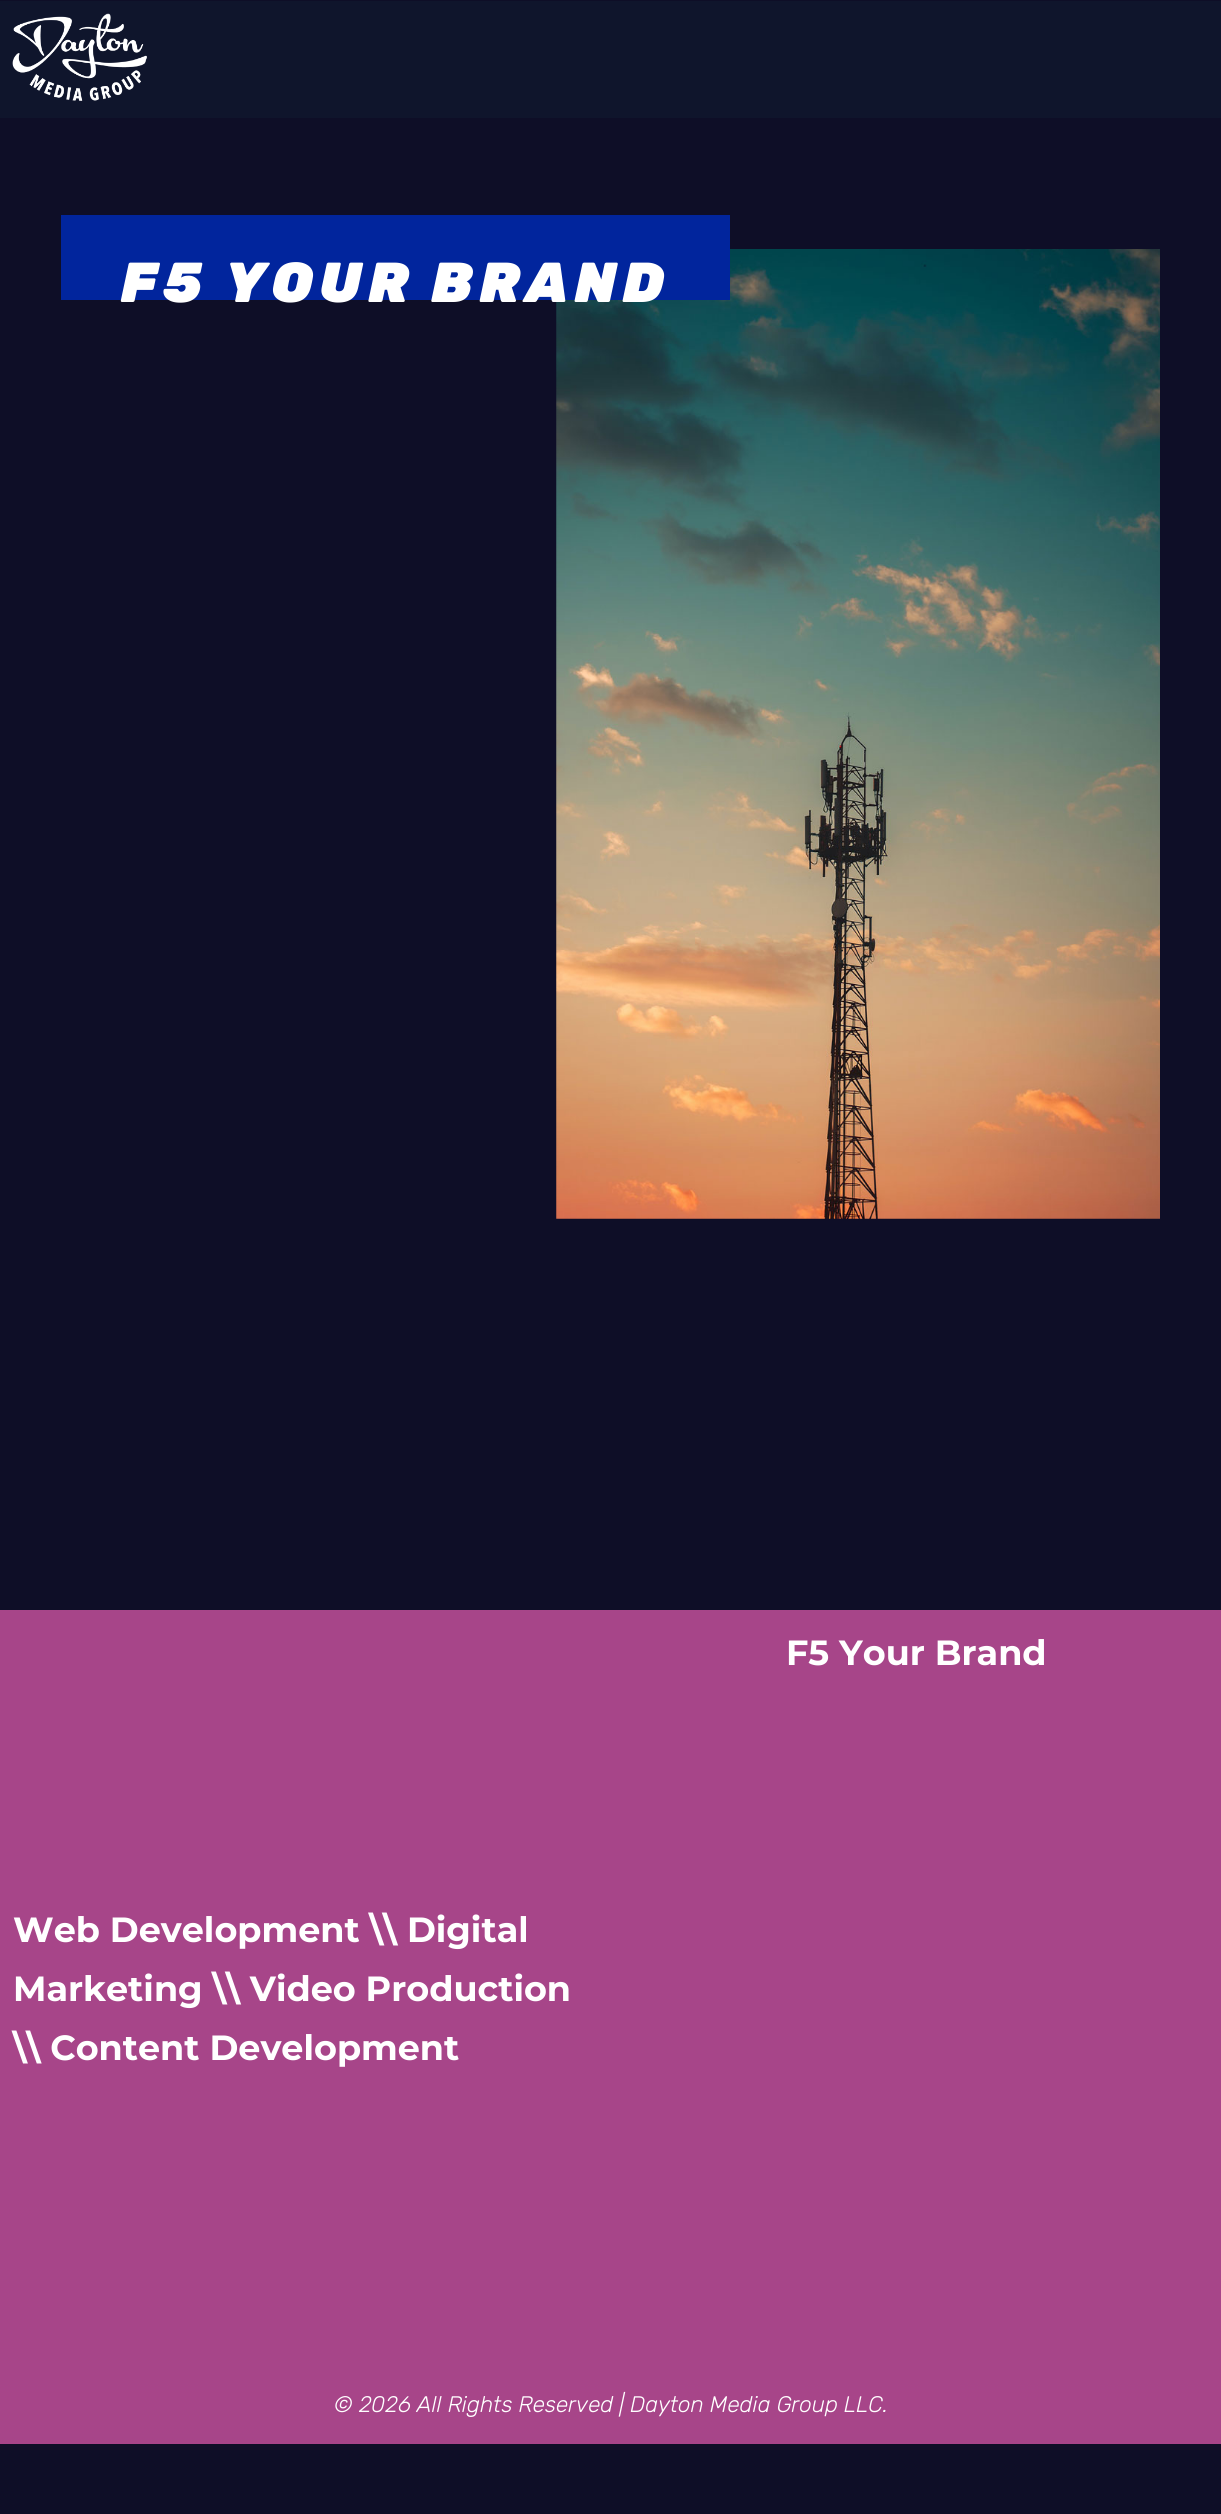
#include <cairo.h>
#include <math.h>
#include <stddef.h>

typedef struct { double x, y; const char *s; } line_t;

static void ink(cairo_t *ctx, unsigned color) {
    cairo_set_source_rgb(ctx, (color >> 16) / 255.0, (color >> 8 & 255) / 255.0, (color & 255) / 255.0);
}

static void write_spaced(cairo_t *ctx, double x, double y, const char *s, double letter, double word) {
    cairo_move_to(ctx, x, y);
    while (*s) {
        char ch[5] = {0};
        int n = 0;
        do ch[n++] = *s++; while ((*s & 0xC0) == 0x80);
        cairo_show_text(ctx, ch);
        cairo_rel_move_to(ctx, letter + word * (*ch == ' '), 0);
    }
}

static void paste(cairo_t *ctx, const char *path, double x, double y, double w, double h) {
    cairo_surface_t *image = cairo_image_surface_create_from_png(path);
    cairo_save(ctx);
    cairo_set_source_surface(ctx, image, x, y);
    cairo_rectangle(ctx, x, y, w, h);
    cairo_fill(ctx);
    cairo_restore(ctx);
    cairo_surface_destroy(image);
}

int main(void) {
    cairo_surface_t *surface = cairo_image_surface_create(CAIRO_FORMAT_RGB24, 1221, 2514);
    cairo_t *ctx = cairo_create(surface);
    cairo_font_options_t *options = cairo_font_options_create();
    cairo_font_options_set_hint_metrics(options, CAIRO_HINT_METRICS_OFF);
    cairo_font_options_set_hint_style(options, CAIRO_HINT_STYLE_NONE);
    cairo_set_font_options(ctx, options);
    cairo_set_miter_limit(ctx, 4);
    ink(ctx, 0x0E0E27);
    cairo_paint(ctx);
    ink(ctx, 0x0F152C);
    cairo_rectangle(ctx, 0, 1, 1221, 117);
    cairo_fill(ctx);
    paste(ctx, "media/1.png", 12, 13, 135, 88);
    paste(ctx, "media/2.png", 556, 249, 604, 970);
    ink(ctx, 0x01259D);
    cairo_rectangle(ctx, 61, 215, 669, 85);
    cairo_fill(ctx);
    cairo_select_font_face(ctx, "Rubik Black", CAIRO_FONT_SLANT_ITALIC, CAIRO_FONT_WEIGHT_NORMAL);
    cairo_set_font_size(ctx, 56.25);
    ink(ctx, 0xFFFFFF);
    write_spaced(ctx, 121, 302, "F5 YOUR BRAND", 6.25, 0);
    ink(ctx, 0xA74589);
    cairo_rectangle(ctx, 0, 1610, 1221, 834);
    cairo_fill(ctx);
    cairo_select_font_face(ctx, "Montserrat", CAIRO_FONT_SLANT_NORMAL, CAIRO_FONT_WEIGHT_BOLD);
    cairo_set_font_size(ctx, 35);
    ink(ctx, 0xFFFFFF);
    {
        static const line_t items[] = {
            {786, 1665, "F5 Your Brand"},
            {13, 1942, "Web Development \\\\ Digital"},
            {13, 2001, "Marketing \\\\ Video Production"},
            {13, 2060, "\\\\ Content Development"},
        };
        for (size_t i = 0; i < sizeof items / sizeof *items; i++) {
            cairo_move_to(ctx, items[i].x, items[i].y);
            cairo_show_text(ctx, items[i].s);
        }
    }
    cairo_select_font_face(ctx, "Rubik Light", CAIRO_FONT_SLANT_ITALIC, CAIRO_FONT_WEIGHT_NORMAL);
    cairo_set_font_size(ctx, 22.5);
    cairo_move_to(ctx, 334, 2412);
    cairo_show_text(ctx, "© 2026 All Rights Reserved | Dayton Media Group LLC.");
    cairo_surface_write_to_png(surface, "image.png");
    cairo_font_options_destroy(options);
    cairo_destroy(ctx);
    cairo_surface_destroy(surface);
    return 0;
}
